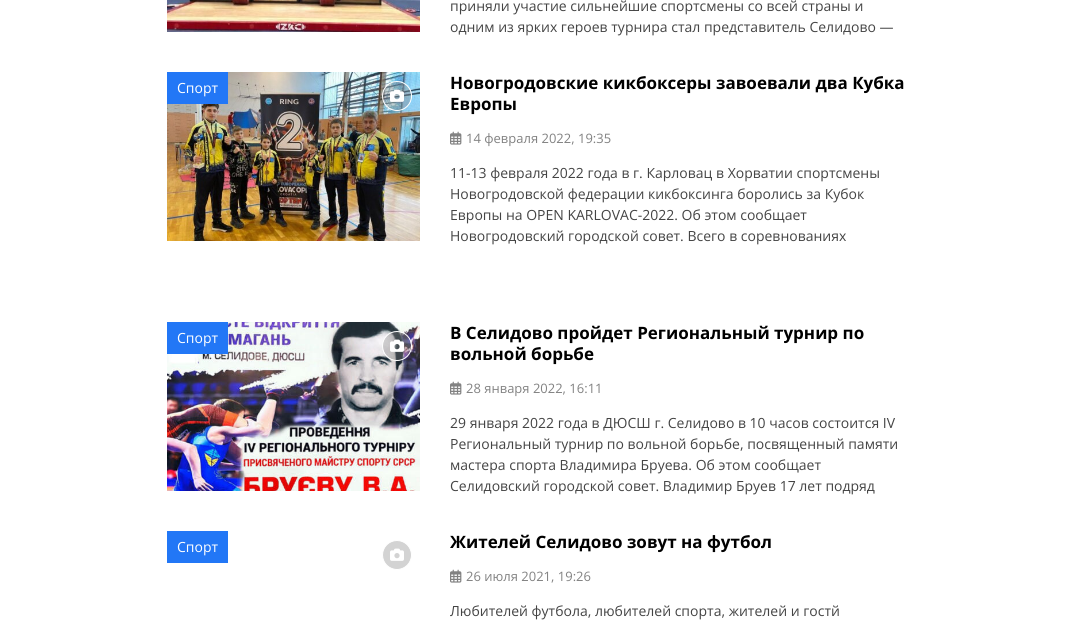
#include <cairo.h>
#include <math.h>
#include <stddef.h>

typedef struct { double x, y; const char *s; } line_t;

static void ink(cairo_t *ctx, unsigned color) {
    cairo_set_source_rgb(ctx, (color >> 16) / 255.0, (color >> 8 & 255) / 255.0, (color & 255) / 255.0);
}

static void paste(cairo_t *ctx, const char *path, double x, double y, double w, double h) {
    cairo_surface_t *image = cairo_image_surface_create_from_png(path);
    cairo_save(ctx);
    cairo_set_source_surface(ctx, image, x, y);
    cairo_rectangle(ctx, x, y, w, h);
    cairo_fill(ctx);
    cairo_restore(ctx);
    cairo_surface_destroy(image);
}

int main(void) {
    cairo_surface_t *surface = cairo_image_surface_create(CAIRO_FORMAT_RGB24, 1073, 622);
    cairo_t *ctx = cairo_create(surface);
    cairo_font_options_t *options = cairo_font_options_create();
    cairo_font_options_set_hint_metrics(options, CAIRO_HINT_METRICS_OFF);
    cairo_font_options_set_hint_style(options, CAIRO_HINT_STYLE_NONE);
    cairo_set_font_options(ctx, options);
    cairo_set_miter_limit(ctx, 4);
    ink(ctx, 0xFFFFFF);
    cairo_paint(ctx);
    paste(ctx, "media/1.png", 167, 0, 253, 32);
    cairo_select_font_face(ctx, "Open Sans", CAIRO_FONT_SLANT_NORMAL, CAIRO_FONT_WEIGHT_NORMAL);
    cairo_set_font_size(ctx, 14);
    ink(ctx, 0x444444);
    cairo_move_to(ctx, 450, 11);
    cairo_show_text(ctx, "приняли участие сильнейшие спортсмены со всей страны и");
    cairo_move_to(ctx, 450, 32);
    cairo_show_text(ctx, "одним из ярких героев турнира стал представитель Селидово —");
    paste(ctx, "media/2.png", 167, 72, 253, 169);
    ink(ctx, 0x2277F6);
    cairo_rectangle(ctx, 167, 72, 61, 32);
    cairo_fill(ctx);
    ink(ctx, 0xFFFFFF);
    cairo_move_to(ctx, 177, 93);
    cairo_show_text(ctx, "Спорт");
    cairo_set_source_rgba(ctx, 0.51, 0.51, 0.51, 0.35);
    cairo_new_path(ctx);
    cairo_arc(ctx, 397, 96, 14.5, 0, 2 * M_PI);
    cairo_fill_preserve(ctx);
    ink(ctx, 0xFFFFFF);
    cairo_set_line_width(ctx, 1);
    cairo_stroke(ctx);
    paste(ctx, "media/3.png", 390, 89, 14, 13);
    cairo_select_font_face(ctx, "Open Sans", CAIRO_FONT_SLANT_NORMAL, CAIRO_FONT_WEIGHT_BOLD);
    cairo_set_font_size(ctx, 17);
    ink(ctx, 0x000000);
    cairo_move_to(ctx, 450, 89);
    cairo_show_text(ctx, "Новогродовские кикбоксеры завоевали два Кубка");
    cairo_move_to(ctx, 450, 110);
    cairo_show_text(ctx, "Европы");
    paste(ctx, "media/4.png", 450, 131, 12, 14);
    cairo_select_font_face(ctx, "Open Sans", CAIRO_FONT_SLANT_NORMAL, CAIRO_FONT_WEIGHT_NORMAL);
    cairo_set_font_size(ctx, 13);
    ink(ctx, 0x828282);
    cairo_move_to(ctx, 466, 143);
    cairo_show_text(ctx, "14 февраля 2022, 19:35");
    cairo_set_font_size(ctx, 14);
    ink(ctx, 0x444444);
    {
        static const line_t items[] = {
            {450, 178, "11-13 февраля 2022 года в г. Карловац в Хорватии спортсмены"},
            {450, 199, "Новогродовской федерации кикбоксинга боролись за Кубок"},
            {450, 220, "Европы на OPEN KARLOVAC-2022. Об этом сообщает"},
            {450, 241, "Новогродовский городской совет. Всего в соревнованиях"},
        };
        for (size_t i = 0; i < sizeof items / sizeof *items; i++) {
            cairo_move_to(ctx, items[i].x, items[i].y);
            cairo_show_text(ctx, items[i].s);
        }
    }
    paste(ctx, "media/5.png", 167, 322, 253, 169);
    ink(ctx, 0x2277F6);
    cairo_rectangle(ctx, 167, 322, 61, 32);
    cairo_fill(ctx);
    ink(ctx, 0xFFFFFF);
    cairo_move_to(ctx, 177, 343);
    cairo_show_text(ctx, "Спорт");
    cairo_set_source_rgba(ctx, 0.51, 0.51, 0.51, 0.35);
    cairo_new_path(ctx);
    cairo_arc(ctx, 397, 346, 14.5, 0, 2 * M_PI);
    cairo_fill_preserve(ctx);
    ink(ctx, 0xFFFFFF);
    cairo_stroke(ctx);
    paste(ctx, "media/6.png", 390, 339, 14, 13);
    cairo_select_font_face(ctx, "Open Sans", CAIRO_FONT_SLANT_NORMAL, CAIRO_FONT_WEIGHT_BOLD);
    cairo_set_font_size(ctx, 17);
    ink(ctx, 0x000000);
    cairo_move_to(ctx, 450, 339);
    cairo_show_text(ctx, "В Селидово пройдет Региональный турнир по");
    cairo_move_to(ctx, 450, 360);
    cairo_show_text(ctx, "вольной борьбе");
    paste(ctx, "media/4.png", 450, 381, 12, 14);
    cairo_select_font_face(ctx, "Open Sans", CAIRO_FONT_SLANT_NORMAL, CAIRO_FONT_WEIGHT_NORMAL);
    cairo_set_font_size(ctx, 13);
    ink(ctx, 0x828282);
    cairo_move_to(ctx, 466, 393);
    cairo_show_text(ctx, "28 января 2022, 16:11");
    cairo_set_font_size(ctx, 14);
    ink(ctx, 0x444444);
    {
        static const line_t items[] = {
            {450, 428, "29 января 2022 года в ДЮСШ г. Селидово в 10 часов состоится ІV"},
            {450, 449, "Региональный турнир по вольной борьбе, посвященный памяти"},
            {450, 470, "мастера спорта Владимира Бруева. Об этом сообщает"},
            {450, 491, "Селидовский городской совет. Владимир Бруев 17 лет подряд"},
        };
        for (size_t i = 0; i < sizeof items / sizeof *items; i++) {
            cairo_move_to(ctx, items[i].x, items[i].y);
            cairo_show_text(ctx, items[i].s);
        }
    }
    ink(ctx, 0x2277F6);
    cairo_rectangle(ctx, 167, 531, 61, 32);
    cairo_fill(ctx);
    ink(ctx, 0xFFFFFF);
    cairo_move_to(ctx, 177, 552);
    cairo_show_text(ctx, "Спорт");
    ink(ctx, 0xD3D3D3);
    cairo_new_path(ctx);
    cairo_arc(ctx, 397, 555, 14.5, 0, 2 * M_PI);
    cairo_fill_preserve(ctx);
    ink(ctx, 0xFFFFFF);
    cairo_stroke(ctx);
    paste(ctx, "media/7.png", 390, 548, 14, 13);
    cairo_select_font_face(ctx, "Open Sans", CAIRO_FONT_SLANT_NORMAL, CAIRO_FONT_WEIGHT_BOLD);
    cairo_set_font_size(ctx, 17);
    ink(ctx, 0x000000);
    cairo_move_to(ctx, 450, 548);
    cairo_show_text(ctx, "Жителей Селидово зовут на футбол");
    paste(ctx, "media/4.png", 450, 569, 12, 14);
    cairo_select_font_face(ctx, "Open Sans", CAIRO_FONT_SLANT_NORMAL, CAIRO_FONT_WEIGHT_NORMAL);
    cairo_set_font_size(ctx, 13);
    ink(ctx, 0x828282);
    cairo_move_to(ctx, 466, 581);
    cairo_show_text(ctx, "26 июля 2021, 19:26");
    cairo_set_font_size(ctx, 14);
    ink(ctx, 0x444444);
    cairo_move_to(ctx, 450, 616);
    cairo_show_text(ctx, "Любителей футбола, любителей спорта, жителей и гостй");
    cairo_surface_write_to_png(surface, "image.png");
    cairo_font_options_destroy(options);
    cairo_destroy(ctx);
    cairo_surface_destroy(surface);
    return 0;
}
